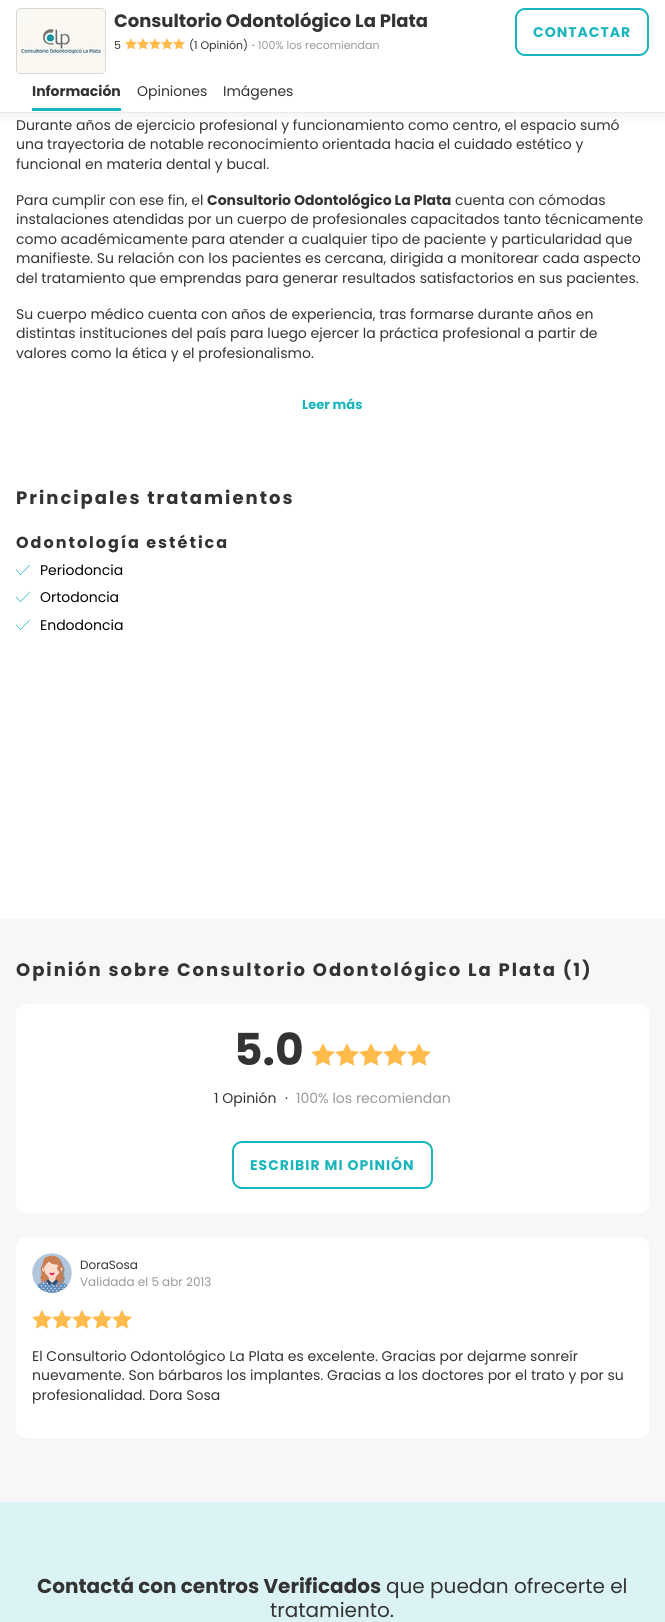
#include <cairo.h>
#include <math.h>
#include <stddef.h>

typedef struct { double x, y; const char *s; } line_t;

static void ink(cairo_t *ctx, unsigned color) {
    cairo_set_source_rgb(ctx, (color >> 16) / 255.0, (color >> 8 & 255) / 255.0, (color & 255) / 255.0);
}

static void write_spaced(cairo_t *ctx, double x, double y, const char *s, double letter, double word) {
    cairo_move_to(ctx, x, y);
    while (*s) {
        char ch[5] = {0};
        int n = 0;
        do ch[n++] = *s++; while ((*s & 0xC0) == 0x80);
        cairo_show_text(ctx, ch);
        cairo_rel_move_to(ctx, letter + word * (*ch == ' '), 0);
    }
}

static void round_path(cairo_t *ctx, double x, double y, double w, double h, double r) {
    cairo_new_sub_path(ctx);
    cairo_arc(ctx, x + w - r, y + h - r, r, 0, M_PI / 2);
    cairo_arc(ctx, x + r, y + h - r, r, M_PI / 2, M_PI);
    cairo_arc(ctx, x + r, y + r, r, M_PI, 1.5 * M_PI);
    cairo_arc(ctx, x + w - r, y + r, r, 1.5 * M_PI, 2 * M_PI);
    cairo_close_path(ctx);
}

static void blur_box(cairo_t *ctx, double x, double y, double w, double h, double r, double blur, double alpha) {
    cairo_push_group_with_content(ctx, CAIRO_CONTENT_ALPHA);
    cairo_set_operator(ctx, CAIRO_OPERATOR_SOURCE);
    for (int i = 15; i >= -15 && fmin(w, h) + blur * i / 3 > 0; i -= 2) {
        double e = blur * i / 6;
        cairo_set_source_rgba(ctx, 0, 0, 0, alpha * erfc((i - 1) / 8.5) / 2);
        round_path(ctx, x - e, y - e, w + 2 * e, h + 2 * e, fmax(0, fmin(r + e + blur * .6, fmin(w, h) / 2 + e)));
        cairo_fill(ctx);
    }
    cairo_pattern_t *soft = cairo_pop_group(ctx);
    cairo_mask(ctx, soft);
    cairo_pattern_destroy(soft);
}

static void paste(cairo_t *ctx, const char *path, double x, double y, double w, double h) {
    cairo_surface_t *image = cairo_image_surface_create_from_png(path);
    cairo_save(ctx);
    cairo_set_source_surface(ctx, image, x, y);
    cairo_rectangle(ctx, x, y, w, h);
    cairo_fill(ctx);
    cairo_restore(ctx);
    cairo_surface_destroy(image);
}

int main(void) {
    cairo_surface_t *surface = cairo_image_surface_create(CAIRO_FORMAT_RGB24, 665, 1622);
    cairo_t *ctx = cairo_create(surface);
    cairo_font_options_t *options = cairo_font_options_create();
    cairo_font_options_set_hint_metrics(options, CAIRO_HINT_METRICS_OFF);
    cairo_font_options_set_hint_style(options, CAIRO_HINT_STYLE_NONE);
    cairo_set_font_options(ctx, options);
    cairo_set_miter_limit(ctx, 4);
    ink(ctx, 0xFFFFFF);
    cairo_paint(ctx);
    ink(ctx, 0x000000);
    blur_box(ctx, 0, 3, 665, 114, 0, 5, 0.05);
    ink(ctx, 0xFFFFFF);
    cairo_rectangle(ctx, 0, 0, 665, 112);
    cairo_fill(ctx);
    ink(ctx, 0xEBEBEB);
    cairo_rectangle(ctx, 0, 112, 665, 1);
    cairo_fill(ctx);
    round_path(ctx, 16.5, 8.5, 89, 65, 4.5);
    ink(ctx, 0xD6D6D6);
    cairo_set_line_width(ctx, 1);
    cairo_stroke(ctx);
    paste(ctx, "media/1.png", 17, 9, 88, 64);
    cairo_select_font_face(ctx, "Poppins", CAIRO_FONT_SLANT_NORMAL, CAIRO_FONT_WEIGHT_BOLD);
    cairo_set_font_size(ctx, 18);
    ink(ctx, 0x333333);
    cairo_move_to(ctx, 114, 27);
    cairo_show_text(ctx, "Consultorio Odontológico La Plata");
    cairo_select_font_face(ctx, "Poppins", CAIRO_FONT_SLANT_NORMAL, CAIRO_FONT_WEIGHT_NORMAL);
    cairo_set_font_size(ctx, 11);
    cairo_move_to(ctx, 114, 49);
    cairo_show_text(ctx, "5");
    paste(ctx, "media/2.png", 125, 38, 12, 12);
    paste(ctx, "media/2.png", 137, 38, 12, 12);
    paste(ctx, "media/2.png", 149, 38, 12, 12);
    paste(ctx, "media/2.png", 161, 38, 12, 12);
    paste(ctx, "media/2.png", 173, 38, 12, 12);
    cairo_move_to(ctx, 189, 49);
    cairo_show_text(ctx, "(1 Opinión)");
    cairo_move_to(ctx, 252, 49);
    cairo_show_text(ctx, "·");
    ink(ctx, 0x999999);
    cairo_move_to(ctx, 258, 49);
    cairo_show_text(ctx, "100% los recomiendan");
    round_path(ctx, 516, 9, 132, 46, 9);
    ink(ctx, 0x19B5BC);
    cairo_set_line_width(ctx, 2);
    cairo_stroke(ctx);
    cairo_select_font_face(ctx, "Poppins", CAIRO_FONT_SLANT_NORMAL, CAIRO_FONT_WEIGHT_BOLD);
    cairo_set_font_size(ctx, 14);
    write_spaced(ctx, 533, 37, "CONTACTAR", 1, 0);
    ink(ctx, 0x333333);
    cairo_move_to(ctx, 32, 96);
    cairo_show_text(ctx, "Información");
    ink(ctx, 0x19B5BC);
    cairo_rectangle(ctx, 32, 108, 89, 3);
    cairo_fill(ctx);
    cairo_select_font_face(ctx, "Poppins", CAIRO_FONT_SLANT_NORMAL, CAIRO_FONT_WEIGHT_NORMAL);
    ink(ctx, 0x333333);
    {
        static const line_t items[] = {
            {137, 96, "Opiniones"},
            {223, 96, "Imágenes"},
            {16, 130, "Durante años de ejercicio profesional y funcionamiento como centro, el espacio sumó"},
            {16, 149, "una trayectoria de notable reconocimiento orientada hacia el cuidado estético y"},
            {16, 169, "funcional en materia dental y bucal."},
            {16, 205, "Para cumplir con ese fin, el"},
        };
        for (size_t i = 0; i < sizeof items / sizeof *items; i++) {
            cairo_move_to(ctx, items[i].x, items[i].y);
            cairo_show_text(ctx, items[i].s);
        }
    }
    cairo_select_font_face(ctx, "Poppins", CAIRO_FONT_SLANT_NORMAL, CAIRO_FONT_WEIGHT_BOLD);
    cairo_move_to(ctx, 207, 205);
    cairo_show_text(ctx, "Consultorio Odontológico La Plata");
    cairo_select_font_face(ctx, "Poppins", CAIRO_FONT_SLANT_NORMAL, CAIRO_FONT_WEIGHT_NORMAL);
    {
        static const line_t items[] = {
            {455, 205, "cuenta con cómodas"},
            {16, 224, "instalaciones atendidas por un cuerpo de profesionales capacitados tanto técnicamente"},
            {16, 244, "como académicamente para atender a cualquier tipo de paciente y particularidad que"},
            {16, 263, "manifieste. Su relación con los pacientes es cercana, dirigida a monitorear cada aspecto"},
            {16, 283, "del tratamiento que emprendas para generar resultados satisfactorios en sus pacientes."},
            {16, 319, "Su cuerpo médico cuenta con años de experiencia, tras formarse durante años en"},
            {16, 338, "distintas instituciones del país para luego ejercer la práctica profesional a partir de"},
            {16, 358, "valores como la ética y el profesionalismo."},
        };
        for (size_t i = 0; i < sizeof items / sizeof *items; i++) {
            cairo_move_to(ctx, items[i].x, items[i].y);
            cairo_show_text(ctx, items[i].s);
        }
    }
    cairo_select_font_face(ctx, "Poppins", CAIRO_FONT_SLANT_NORMAL, CAIRO_FONT_WEIGHT_BOLD);
    cairo_set_font_size(ctx, 13);
    ink(ctx, 0x19B5BC);
    cairo_move_to(ctx, 302, 409);
    cairo_show_text(ctx, "Leer más");
    cairo_set_font_size(ctx, 18);
    ink(ctx, 0x333333);
    write_spaced(ctx, 16, 504, "Principales tratamientos", 2, 0);
    cairo_set_font_size(ctx, 16);
    write_spaced(ctx, 16, 548, "Odontología estética", 2, 0);
    paste(ctx, "media/3.png", 16, 564, 14, 11);
    cairo_select_font_face(ctx, "Poppins", CAIRO_FONT_SLANT_NORMAL, CAIRO_FONT_WEIGHT_NORMAL);
    cairo_set_font_size(ctx, 14);
    ink(ctx, 0x000000);
    cairo_move_to(ctx, 40, 575);
    cairo_show_text(ctx, "Periodoncia");
    paste(ctx, "media/3.png", 16, 591, 14, 11);
    cairo_move_to(ctx, 40, 602);
    cairo_show_text(ctx, "Ortodoncia");
    paste(ctx, "media/3.png", 16, 619, 14, 11);
    cairo_move_to(ctx, 40, 630);
    cairo_show_text(ctx, "Endodoncia");
    ink(ctx, 0xF7F7F7);
    cairo_rectangle(ctx, 0, 919, 665, 583);
    cairo_fill(ctx);
    cairo_select_font_face(ctx, "Poppins", CAIRO_FONT_SLANT_NORMAL, CAIRO_FONT_WEIGHT_BOLD);
    cairo_set_font_size(ctx, 18);
    ink(ctx, 0x333333);
    write_spaced(ctx, 16, 976, "Opinión sobre Consultorio Odontológico La Plata (1)", 2, 0);
    ink(ctx, 0xFFFFFF);
    round_path(ctx, 16, 1004, 633, 209, 10);
    cairo_fill(ctx);
    cairo_set_font_size(ctx, 44);
    ink(ctx, 0x333333);
    cairo_move_to(ctx, 234, 1065);
    cairo_show_text(ctx, "5.0");
    paste(ctx, "media/4.png", 311, 1043, 24, 23);
    paste(ctx, "media/4.png", 335, 1043, 24, 23);
    paste(ctx, "media/4.png", 359, 1043, 24, 23);
    paste(ctx, "media/4.png", 383, 1043, 24, 23);
    paste(ctx, "media/4.png", 407, 1043, 24, 23);
    cairo_select_font_face(ctx, "Poppins", CAIRO_FONT_SLANT_NORMAL, CAIRO_FONT_WEIGHT_NORMAL);
    cairo_set_font_size(ctx, 14);
    cairo_move_to(ctx, 214, 1103);
    cairo_show_text(ctx, "1 Opinión");
    cairo_move_to(ctx, 285, 1103);
    cairo_show_text(ctx, "·");
    ink(ctx, 0x999999);
    cairo_move_to(ctx, 296, 1103);
    cairo_show_text(ctx, "100% los recomiendan");
    round_path(ctx, 233, 1142, 199, 46, 9);
    ink(ctx, 0x19B5BC);
    cairo_stroke(ctx);
    cairo_select_font_face(ctx, "Poppins", CAIRO_FONT_SLANT_NORMAL, CAIRO_FONT_WEIGHT_BOLD);
    write_spaced(ctx, 250, 1170, "ESCRIBIR MI OPINIÓN", 1, 0);
    ink(ctx, 0xFFFFFF);
    round_path(ctx, 16, 1237, 633, 201, 10);
    cairo_fill(ctx);
    paste(ctx, "media/5.png", 32, 1253, 40, 40);
    cairo_select_font_face(ctx, "Poppins", CAIRO_FONT_SLANT_NORMAL, CAIRO_FONT_WEIGHT_NORMAL);
    cairo_set_font_size(ctx, 12);
    ink(ctx, 0x333333);
    cairo_move_to(ctx, 80, 1269);
    cairo_show_text(ctx, "DoraSosa");
    ink(ctx, 0x999999);
    cairo_move_to(ctx, 80, 1286);
    cairo_show_text(ctx, "Validada el 5 abr 2013");
    paste(ctx, "media/6.png", 32, 1310, 20, 19);
    paste(ctx, "media/6.png", 52, 1310, 20, 19);
    paste(ctx, "media/6.png", 72, 1310, 20, 19);
    paste(ctx, "media/6.png", 92, 1310, 20, 19);
    paste(ctx, "media/6.png", 112, 1310, 20, 19);
    cairo_set_font_size(ctx, 14);
    ink(ctx, 0x333333);
    {
        static const line_t items[] = {
            {32, 1361, "El Consultorio Odontológico La Plata es excelente. Gracias por dejarme sonreír"},
            {32, 1380, "nuevamente. Son bárbaros los implantes. Gracias a los doctores por el trato y por su"},
            {32, 1400, "profesionalidad. Dora Sosa"},
        };
        for (size_t i = 0; i < sizeof items / sizeof *items; i++) {
            cairo_move_to(ctx, items[i].x, items[i].y);
            cairo_show_text(ctx, items[i].s);
        }
    }
    ink(ctx, 0xDBF3F5);
    cairo_rectangle(ctx, 0, 1502, 665, 120);
    cairo_fill(ctx);
    cairo_select_font_face(ctx, "Poppins", CAIRO_FONT_SLANT_NORMAL, CAIRO_FONT_WEIGHT_BOLD);
    cairo_set_font_size(ctx, 20);
    ink(ctx, 0x333333);
    cairo_move_to(ctx, 37, 1593);
    cairo_show_text(ctx, "Contactá con centros Verificados");
    cairo_select_font_face(ctx, "Poppins", CAIRO_FONT_SLANT_NORMAL, CAIRO_FONT_WEIGHT_NORMAL);
    cairo_move_to(ctx, 386, 1593);
    cairo_show_text(ctx, "que puedan ofrecerte el");
    cairo_move_to(ctx, 270, 1617);
    cairo_show_text(ctx, "tratamiento.");
    cairo_surface_write_to_png(surface, "image.png");
    cairo_font_options_destroy(options);
    cairo_destroy(ctx);
    cairo_surface_destroy(surface);
    return 0;
}
